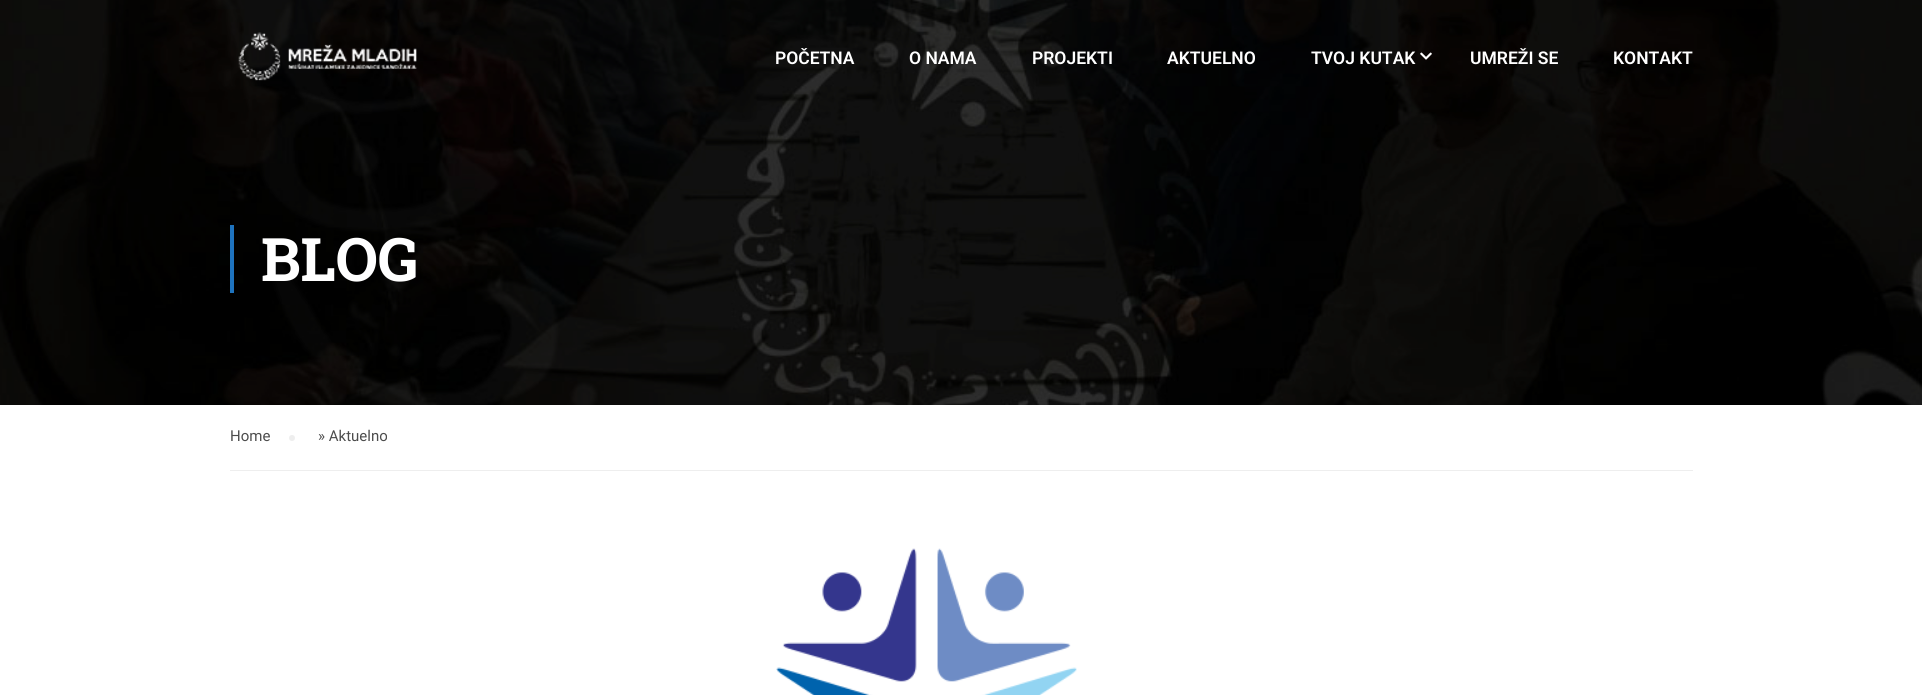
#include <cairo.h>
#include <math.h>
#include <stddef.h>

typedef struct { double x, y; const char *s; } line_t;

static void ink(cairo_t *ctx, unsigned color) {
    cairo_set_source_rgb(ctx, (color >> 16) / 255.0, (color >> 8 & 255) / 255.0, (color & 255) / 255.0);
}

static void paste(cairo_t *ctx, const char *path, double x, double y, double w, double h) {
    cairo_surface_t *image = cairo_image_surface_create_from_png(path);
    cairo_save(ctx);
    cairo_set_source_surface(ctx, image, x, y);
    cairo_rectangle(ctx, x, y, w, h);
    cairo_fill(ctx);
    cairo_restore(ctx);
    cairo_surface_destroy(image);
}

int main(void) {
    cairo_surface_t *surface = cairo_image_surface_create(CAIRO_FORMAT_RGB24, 1922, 695);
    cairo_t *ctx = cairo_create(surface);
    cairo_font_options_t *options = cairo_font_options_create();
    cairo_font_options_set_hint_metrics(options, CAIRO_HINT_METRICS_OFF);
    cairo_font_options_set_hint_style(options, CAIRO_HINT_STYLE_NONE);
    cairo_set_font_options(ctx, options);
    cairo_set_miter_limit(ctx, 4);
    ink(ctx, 0xFFFFFF);
    cairo_paint(ctx);
    paste(ctx, "media/3.png", 0, 0, 1922, 405);
    paste(ctx, "media/1.png", 238, 32, 179, 49);
    cairo_select_font_face(ctx, "Roboto SemiBold", CAIRO_FONT_SLANT_NORMAL, CAIRO_FONT_WEIGHT_NORMAL);
    cairo_set_font_size(ctx, 17.5);
    ink(ctx, 0xFFFFFF);
    {
        static const line_t items[] = {
            {775, 64, "POČETNA"},
            {909, 64, "O NAMA"},
            {1032, 64, "PROJEKTI"},
            {1167, 64, "AKTUELNO"},
            {1311, 64, "TVOJ KUTAK"},
        };
        for (size_t i = 0; i < sizeof items / sizeof *items; i++) {
            cairo_move_to(ctx, items[i].x, items[i].y);
            cairo_show_text(ctx, items[i].s);
        }
    }
    paste(ctx, "media/2.png", 1420, 52, 12, 8);
    cairo_move_to(ctx, 1470, 64);
    cairo_show_text(ctx, "UMREŽI SE");
    cairo_move_to(ctx, 1613, 64);
    cairo_show_text(ctx, "KONTAKT");
    ink(ctx, 0x1E73BE);
    cairo_rectangle(ctx, 230, 225, 4, 68);
    cairo_fill(ctx);
    cairo_select_font_face(ctx, "Roboto Slab", CAIRO_FONT_SLANT_NORMAL, CAIRO_FONT_WEIGHT_BOLD);
    cairo_set_font_size(ctx, 60);
    ink(ctx, 0xFFFFFF);
    cairo_move_to(ctx, 261, 281);
    cairo_show_text(ctx, "BLOG");
    ink(ctx, 0xEEEEEE);
    cairo_rectangle(ctx, 230, 470, 1463, 1);
    cairo_fill(ctx);
    cairo_select_font_face(ctx, "Roboto", CAIRO_FONT_SLANT_NORMAL, CAIRO_FONT_WEIGHT_NORMAL);
    cairo_set_font_size(ctx, 15);
    ink(ctx, 0x4C4C4C);
    cairo_move_to(ctx, 230, 441);
    cairo_show_text(ctx, "Home");
    ink(ctx, 0xEEEEEE);
    cairo_new_path(ctx);
    cairo_arc(ctx, 292, 438, 3, 0, 2 * M_PI);
    cairo_fill(ctx);
    ink(ctx, 0x4C4C4C);
    cairo_move_to(ctx, 318, 441);
    cairo_show_text(ctx, "» Aktuelno");
    paste(ctx, "media/4.png", 776, 548, 301, 147);
    cairo_surface_write_to_png(surface, "image.png");
    cairo_font_options_destroy(options);
    cairo_destroy(ctx);
    cairo_surface_destroy(surface);
    return 0;
}
